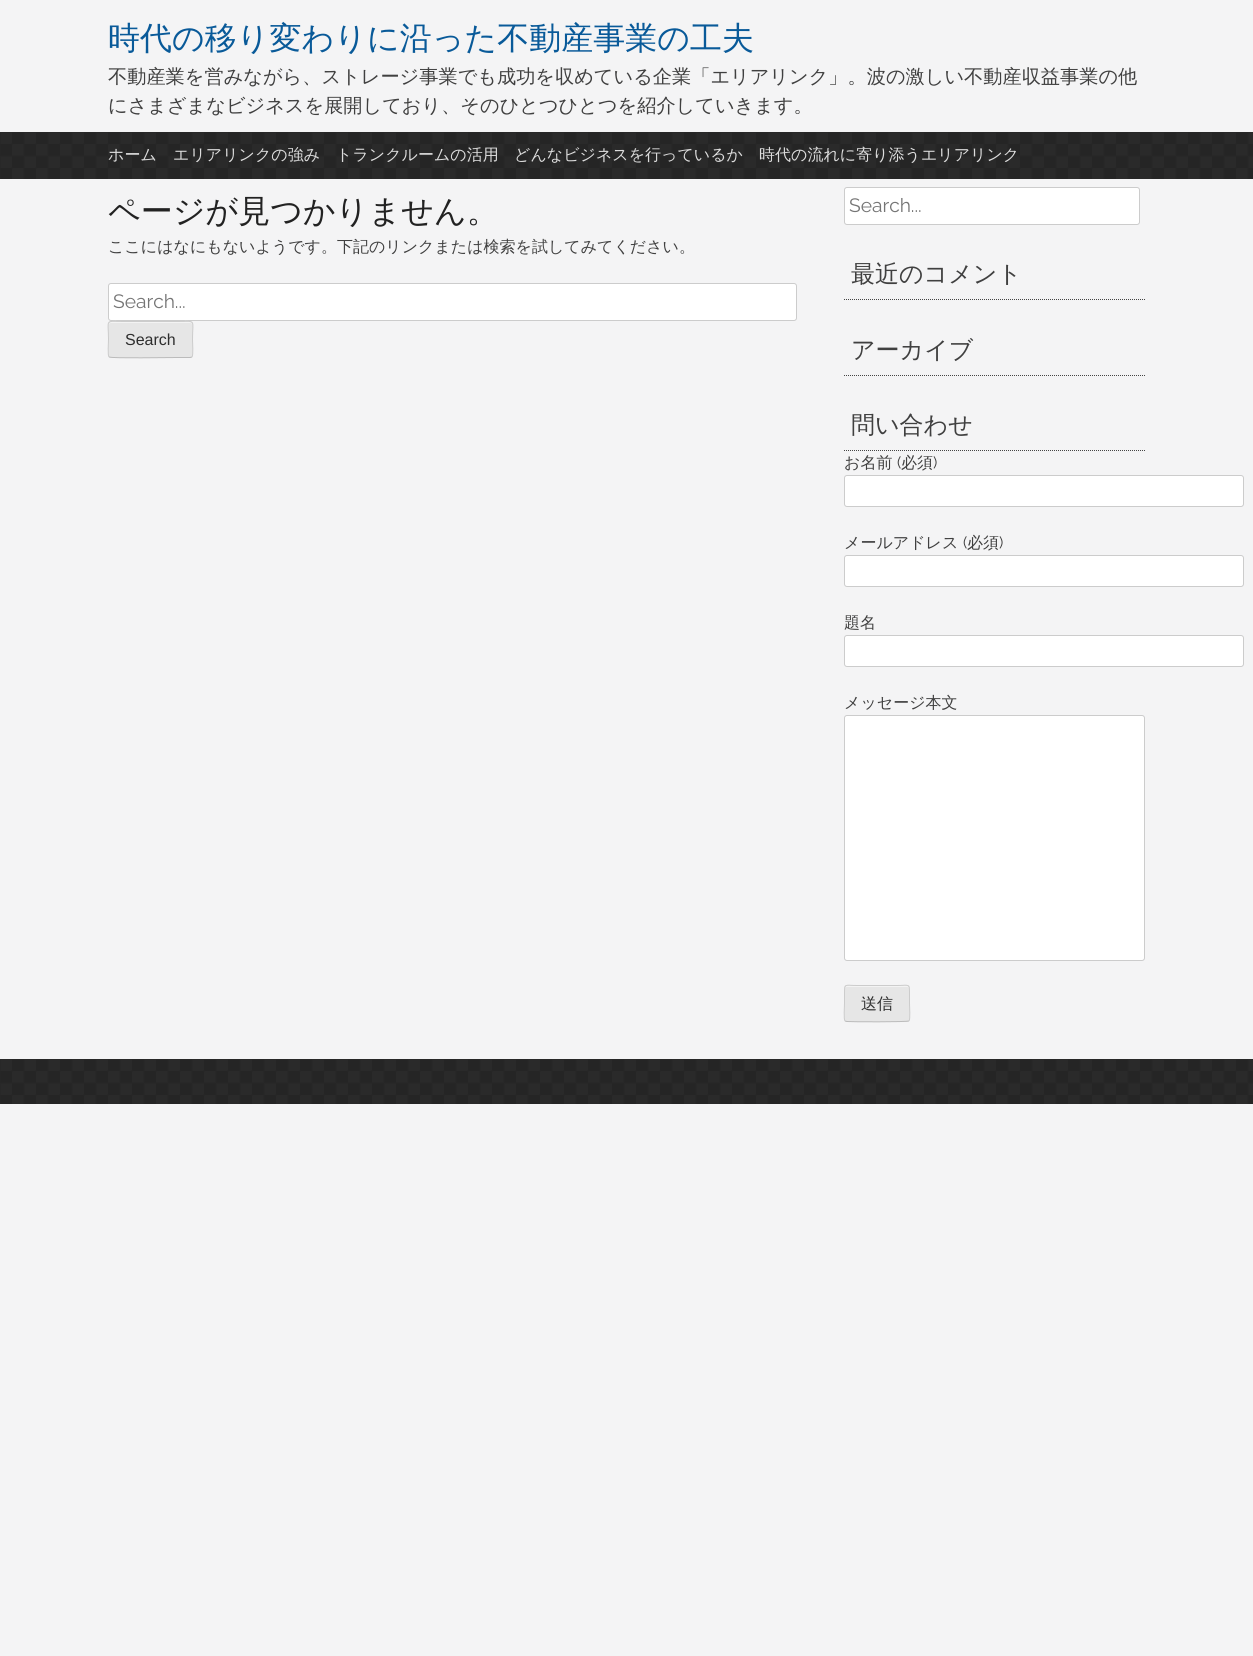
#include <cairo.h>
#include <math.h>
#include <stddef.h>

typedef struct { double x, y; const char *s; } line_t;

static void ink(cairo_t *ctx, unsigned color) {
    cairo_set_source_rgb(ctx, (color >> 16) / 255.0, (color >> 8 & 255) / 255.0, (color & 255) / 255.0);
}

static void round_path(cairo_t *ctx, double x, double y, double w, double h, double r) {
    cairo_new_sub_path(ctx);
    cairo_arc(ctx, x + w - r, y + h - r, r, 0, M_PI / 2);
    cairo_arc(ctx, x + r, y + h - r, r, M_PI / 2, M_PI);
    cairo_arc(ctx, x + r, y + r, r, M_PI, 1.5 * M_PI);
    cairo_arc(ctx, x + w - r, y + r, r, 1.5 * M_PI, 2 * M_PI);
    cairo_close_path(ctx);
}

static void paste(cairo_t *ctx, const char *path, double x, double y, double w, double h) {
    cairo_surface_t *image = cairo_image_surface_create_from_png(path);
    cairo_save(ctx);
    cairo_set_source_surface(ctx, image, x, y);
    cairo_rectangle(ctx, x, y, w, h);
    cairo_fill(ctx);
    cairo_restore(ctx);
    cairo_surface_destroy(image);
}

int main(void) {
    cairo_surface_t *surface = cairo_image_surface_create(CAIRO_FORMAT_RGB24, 1253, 1656);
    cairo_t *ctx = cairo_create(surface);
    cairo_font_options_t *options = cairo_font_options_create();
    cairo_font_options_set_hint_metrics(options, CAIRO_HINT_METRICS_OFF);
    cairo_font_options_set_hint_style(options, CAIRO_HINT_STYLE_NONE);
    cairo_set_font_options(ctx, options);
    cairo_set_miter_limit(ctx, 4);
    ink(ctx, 0xF4F4F5);
    cairo_paint(ctx);
    cairo_select_font_face(ctx, "WenQuanYi Zen Hei Medium", CAIRO_FONT_SLANT_NORMAL, CAIRO_FONT_WEIGHT_NORMAL);
    cairo_set_font_size(ctx, 32);
    ink(ctx, 0x095A99);
    cairo_move_to(ctx, 108, 49);
    cairo_show_text(ctx, "時代の移り変わりに沿った不動産事業の工夫");
    cairo_set_font_size(ctx, 19.2);
    ink(ctx, 0x404040);
    cairo_move_to(ctx, 108, 83);
    cairo_show_text(ctx, "不動産業を営みながら、ストレージ事業でも成功を収めている企業「エリアリンク」。波の激しい不動産収益事業の他");
    cairo_move_to(ctx, 108, 112);
    cairo_show_text(ctx, "にさまざまなビジネスを展開しており、そのひとつひとつを紹介していきます。");
    paste(ctx, "media/1.png", 0, 132, 1253, 47);
    cairo_set_font_size(ctx, 16);
    ink(ctx, 0xDDDDDD);
    {
        static const line_t items[] = {
            {108, 160, "ホーム"},
            {173, 160, "エリアリンクの強み"},
            {336, 160, "トランクルームの活用"},
            {514, 160, "どんなビジネスを行っているか"},
            {759, 160, "時代の流れに寄り添うエリアリンク"},
        };
        for (size_t i = 0; i < sizeof items / sizeof *items; i++) {
            cairo_move_to(ctx, items[i].x, items[i].y);
            cairo_show_text(ctx, items[i].s);
        }
    }
    cairo_set_font_size(ctx, 32);
    ink(ctx, 0x222222);
    cairo_move_to(ctx, 108, 222);
    cairo_show_text(ctx, "ページが見つかりません。");
    cairo_set_font_size(ctx, 16);
    ink(ctx, 0x404040);
    cairo_move_to(ctx, 108, 252);
    cairo_show_text(ctx, "ここにはなにもないようです。下記のリンクまたは検索を試してみてください。");
    ink(ctx, 0xFFFFFF);
    round_path(ctx, 108.5, 283.5, 688, 37, 2.5);
    cairo_fill_preserve(ctx);
    ink(ctx, 0xCCCCCC);
    cairo_set_line_width(ctx, 1);
    cairo_stroke(ctx);
    cairo_select_font_face(ctx, "Raleway", CAIRO_FONT_SLANT_NORMAL, CAIRO_FONT_WEIGHT_NORMAL);
    cairo_set_font_size(ctx, 19.2);
    ink(ctx, 0x757575);
    cairo_move_to(ctx, 113, 308);
    cairo_show_text(ctx, "Search...");
    ink(ctx, 0xE6E6E6);
    round_path(ctx, 108, 321, 85, 37, 3);
    cairo_fill(ctx);
    ink(ctx, 0xF3F3F3);
    cairo_new_path(ctx);
    cairo_move_to(ctx, 111, 323);
    cairo_line_to(ctx, 190, 323);
    cairo_curve_to(ctx, 191, 323, 192, 324, 192, 325);
    cairo_curve_to(ctx, 192, 318, 180, 322, 177, 322);
    cairo_line_to(ctx, 124, 322);
    cairo_curve_to(ctx, 121, 322, 109, 318, 109, 325);
    cairo_curve_to(ctx, 109, 324, 110, 323, 111, 323);
    cairo_close_path(ctx);
    cairo_fill(ctx);
    cairo_new_path(ctx);
    cairo_move_to(ctx, 192, 357);
    cairo_line_to(ctx, 190, 357.5);
    cairo_line_to(ctx, 177, 357.5);
    cairo_curve_to(ctx, 169.5, 357.5, 111.5, 358.5, 109.5, 357);
    cairo_line_to(ctx, 109, 357);
    ink(ctx, 0xBBBBBB);
    cairo_stroke(ctx);
    cairo_new_path(ctx);
    cairo_move_to(ctx, 109, 357);
    cairo_curve_to(ctx, 107.5, 355, 108.5, 342.5, 108.5, 339.5);
    cairo_curve_to(ctx, 108.5, 318.5, 104, 321.5, 124, 321.5);
    cairo_line_to(ctx, 177, 321.5);
    cairo_curve_to(ctx, 197, 321.5, 192.5, 318.5, 192.5, 339.5);
    cairo_curve_to(ctx, 192.5, 342.5, 193.5, 355, 192, 357);
    ink(ctx, 0xCCCCCC);
    cairo_stroke(ctx);
    cairo_select_font_face(ctx, "Liberation Sans", CAIRO_FONT_SLANT_NORMAL, CAIRO_FONT_WEIGHT_NORMAL);
    cairo_set_font_size(ctx, 16);
    ink(ctx, 0x2E2E2E);
    cairo_move_to(ctx, 125, 345);
    cairo_show_text(ctx, "Search");
    ink(ctx, 0xFFFFFF);
    round_path(ctx, 844.5, 187.5, 295, 37, 2.5);
    cairo_fill_preserve(ctx);
    ink(ctx, 0xCCCCCC);
    cairo_stroke(ctx);
    cairo_select_font_face(ctx, "Raleway", CAIRO_FONT_SLANT_NORMAL, CAIRO_FONT_WEIGHT_NORMAL);
    cairo_set_font_size(ctx, 19.2);
    ink(ctx, 0x757575);
    cairo_move_to(ctx, 849, 212);
    cairo_show_text(ctx, "Search...");
    cairo_new_path(ctx);
    cairo_move_to(ctx, 844, 299.5);
    cairo_line_to(ctx, 1145, 299.5);
    ink(ctx, 0x444444);
    cairo_set_dash(ctx, (double[]){1, 1}, 2, 0);
    cairo_stroke(ctx);
    cairo_select_font_face(ctx, "WenQuanYi Zen Hei Medium", CAIRO_FONT_SLANT_NORMAL, CAIRO_FONT_WEIGHT_NORMAL);
    cairo_set_font_size(ctx, 24);
    ink(ctx, 0x404040);
    cairo_move_to(ctx, 851, 282);
    cairo_show_text(ctx, "最近のコメント");
    cairo_new_path(ctx);
    cairo_move_to(ctx, 844, 375.5);
    cairo_line_to(ctx, 1145, 375.5);
    ink(ctx, 0x444444);
    cairo_stroke(ctx);
    ink(ctx, 0x404040);
    cairo_move_to(ctx, 851, 358);
    cairo_show_text(ctx, "アーカイブ");
    cairo_new_path(ctx);
    cairo_move_to(ctx, 844, 450.5);
    cairo_line_to(ctx, 1145, 450.5);
    ink(ctx, 0x444444);
    cairo_stroke(ctx);
    ink(ctx, 0x404040);
    cairo_move_to(ctx, 851, 433);
    cairo_show_text(ctx, "問い合わせ");
    cairo_set_font_size(ctx, 16);
    cairo_move_to(ctx, 844, 468);
    cairo_show_text(ctx, "お名前");
    cairo_select_font_face(ctx, "Raleway", CAIRO_FONT_SLANT_NORMAL, CAIRO_FONT_WEIGHT_NORMAL);
    cairo_move_to(ctx, 897, 468);
    cairo_show_text(ctx, "(");
    cairo_select_font_face(ctx, "WenQuanYi Zen Hei Medium", CAIRO_FONT_SLANT_NORMAL, CAIRO_FONT_WEIGHT_NORMAL);
    cairo_move_to(ctx, 901, 468);
    cairo_show_text(ctx, "必須");
    cairo_select_font_face(ctx, "Raleway", CAIRO_FONT_SLANT_NORMAL, CAIRO_FONT_WEIGHT_NORMAL);
    cairo_move_to(ctx, 933, 468);
    cairo_show_text(ctx, ")");
    ink(ctx, 0xFFFFFF);
    round_path(ctx, 844.5, 475.5, 399, 31, 2.5);
    cairo_fill_preserve(ctx);
    ink(ctx, 0xCCCCCC);
    cairo_set_dash(ctx, NULL, 0, 0);
    cairo_stroke(ctx);
    cairo_select_font_face(ctx, "WenQuanYi Zen Hei Medium", CAIRO_FONT_SLANT_NORMAL, CAIRO_FONT_WEIGHT_NORMAL);
    ink(ctx, 0x404040);
    cairo_move_to(ctx, 844, 548);
    cairo_show_text(ctx, "メールアドレス");
    cairo_select_font_face(ctx, "Raleway", CAIRO_FONT_SLANT_NORMAL, CAIRO_FONT_WEIGHT_NORMAL);
    cairo_move_to(ctx, 963, 548);
    cairo_show_text(ctx, "(");
    cairo_select_font_face(ctx, "WenQuanYi Zen Hei Medium", CAIRO_FONT_SLANT_NORMAL, CAIRO_FONT_WEIGHT_NORMAL);
    cairo_move_to(ctx, 967, 548);
    cairo_show_text(ctx, "必須");
    cairo_select_font_face(ctx, "Raleway", CAIRO_FONT_SLANT_NORMAL, CAIRO_FONT_WEIGHT_NORMAL);
    cairo_move_to(ctx, 999, 548);
    cairo_show_text(ctx, ")");
    ink(ctx, 0xFFFFFF);
    round_path(ctx, 844.5, 555.5, 399, 31, 2.5);
    cairo_fill_preserve(ctx);
    ink(ctx, 0xCCCCCC);
    cairo_stroke(ctx);
    cairo_select_font_face(ctx, "WenQuanYi Zen Hei Medium", CAIRO_FONT_SLANT_NORMAL, CAIRO_FONT_WEIGHT_NORMAL);
    ink(ctx, 0x404040);
    cairo_move_to(ctx, 844, 628);
    cairo_show_text(ctx, "題名");
    ink(ctx, 0xFFFFFF);
    round_path(ctx, 844.5, 635.5, 399, 31, 2.5);
    cairo_fill_preserve(ctx);
    ink(ctx, 0xCCCCCC);
    cairo_stroke(ctx);
    ink(ctx, 0x404040);
    cairo_move_to(ctx, 844, 708);
    cairo_show_text(ctx, "メッセージ本文");
    ink(ctx, 0xFFFFFF);
    round_path(ctx, 844.5, 715.5, 300, 245, 2.5);
    cairo_fill_preserve(ctx);
    ink(ctx, 0xCCCCCC);
    cairo_stroke(ctx);
    ink(ctx, 0xE6E6E6);
    round_path(ctx, 844, 985, 66, 37, 3);
    cairo_fill(ctx);
    ink(ctx, 0xF3F3F3);
    cairo_new_path(ctx);
    cairo_move_to(ctx, 847, 987);
    cairo_line_to(ctx, 907, 987);
    cairo_curve_to(ctx, 908, 987, 909, 988, 909, 989);
    cairo_curve_to(ctx, 909, 983, 901, 986, 897, 986);
    cairo_line_to(ctx, 857, 986);
    cairo_curve_to(ctx, 853, 986, 845, 983, 845, 989);
    cairo_curve_to(ctx, 845, 988, 846, 987, 847, 987);
    cairo_close_path(ctx);
    cairo_fill(ctx);
    cairo_new_path(ctx);
    cairo_move_to(ctx, 909, 1021);
    cairo_line_to(ctx, 908.5, 1021);
    cairo_curve_to(ctx, 907.5, 1022, 852, 1022, 847, 1021.5);
    cairo_line_to(ctx, 845, 1021);
    ink(ctx, 0xBBBBBB);
    cairo_stroke(ctx);
    cairo_new_path(ctx);
    cairo_move_to(ctx, 845, 1021);
    cairo_curve_to(ctx, 843.5, 1019, 844.5, 1006.5, 844.5, 1003.5);
    cairo_line_to(ctx, 844.5, 993);
    cairo_curve_to(ctx, 844.5, 983, 845, 985.5, 857, 985.5);
    cairo_line_to(ctx, 897, 985.5);
    cairo_curve_to(ctx, 909, 985.5, 909.5, 983, 909.5, 993);
    cairo_line_to(ctx, 909.5, 1003.5);
    cairo_curve_to(ctx, 909.5, 1006.5, 910.5, 1019, 909, 1021);
    ink(ctx, 0xCCCCCC);
    cairo_stroke(ctx);
    ink(ctx, 0x2E2E2E);
    cairo_move_to(ctx, 861, 1009);
    cairo_show_text(ctx, "送信");
    paste(ctx, "media/2.png", 0, 1059, 1253, 45);
    cairo_surface_write_to_png(surface, "image.png");
    cairo_font_options_destroy(options);
    cairo_destroy(ctx);
    cairo_surface_destroy(surface);
    return 0;
}
